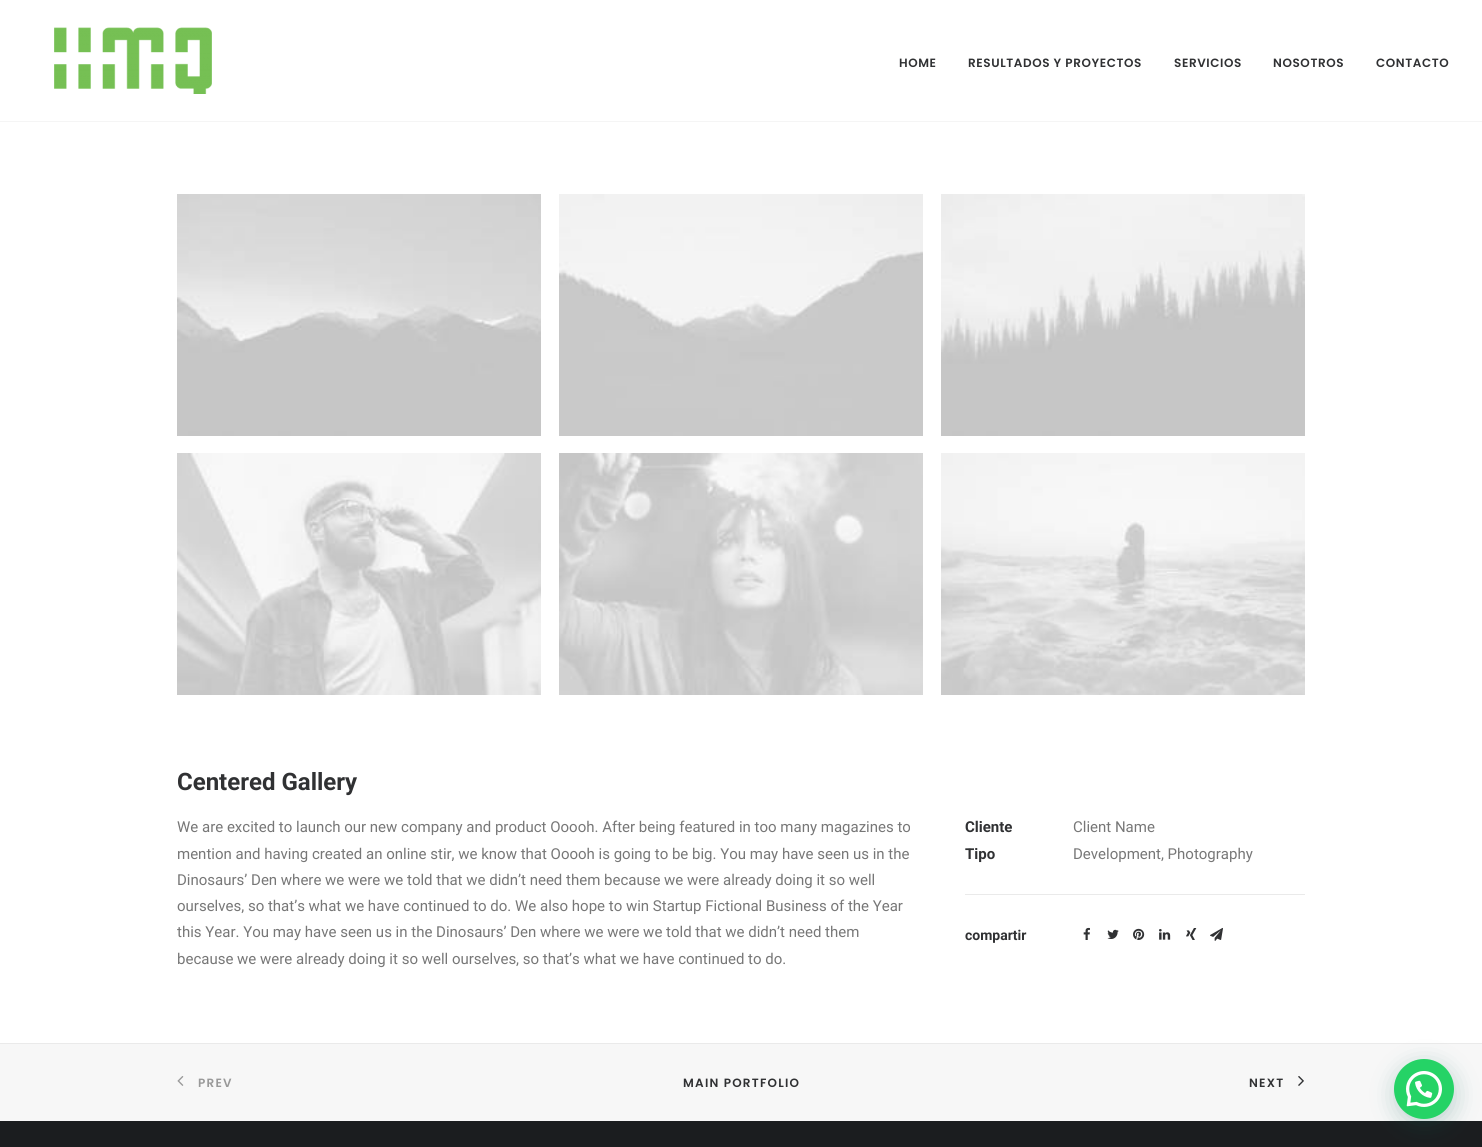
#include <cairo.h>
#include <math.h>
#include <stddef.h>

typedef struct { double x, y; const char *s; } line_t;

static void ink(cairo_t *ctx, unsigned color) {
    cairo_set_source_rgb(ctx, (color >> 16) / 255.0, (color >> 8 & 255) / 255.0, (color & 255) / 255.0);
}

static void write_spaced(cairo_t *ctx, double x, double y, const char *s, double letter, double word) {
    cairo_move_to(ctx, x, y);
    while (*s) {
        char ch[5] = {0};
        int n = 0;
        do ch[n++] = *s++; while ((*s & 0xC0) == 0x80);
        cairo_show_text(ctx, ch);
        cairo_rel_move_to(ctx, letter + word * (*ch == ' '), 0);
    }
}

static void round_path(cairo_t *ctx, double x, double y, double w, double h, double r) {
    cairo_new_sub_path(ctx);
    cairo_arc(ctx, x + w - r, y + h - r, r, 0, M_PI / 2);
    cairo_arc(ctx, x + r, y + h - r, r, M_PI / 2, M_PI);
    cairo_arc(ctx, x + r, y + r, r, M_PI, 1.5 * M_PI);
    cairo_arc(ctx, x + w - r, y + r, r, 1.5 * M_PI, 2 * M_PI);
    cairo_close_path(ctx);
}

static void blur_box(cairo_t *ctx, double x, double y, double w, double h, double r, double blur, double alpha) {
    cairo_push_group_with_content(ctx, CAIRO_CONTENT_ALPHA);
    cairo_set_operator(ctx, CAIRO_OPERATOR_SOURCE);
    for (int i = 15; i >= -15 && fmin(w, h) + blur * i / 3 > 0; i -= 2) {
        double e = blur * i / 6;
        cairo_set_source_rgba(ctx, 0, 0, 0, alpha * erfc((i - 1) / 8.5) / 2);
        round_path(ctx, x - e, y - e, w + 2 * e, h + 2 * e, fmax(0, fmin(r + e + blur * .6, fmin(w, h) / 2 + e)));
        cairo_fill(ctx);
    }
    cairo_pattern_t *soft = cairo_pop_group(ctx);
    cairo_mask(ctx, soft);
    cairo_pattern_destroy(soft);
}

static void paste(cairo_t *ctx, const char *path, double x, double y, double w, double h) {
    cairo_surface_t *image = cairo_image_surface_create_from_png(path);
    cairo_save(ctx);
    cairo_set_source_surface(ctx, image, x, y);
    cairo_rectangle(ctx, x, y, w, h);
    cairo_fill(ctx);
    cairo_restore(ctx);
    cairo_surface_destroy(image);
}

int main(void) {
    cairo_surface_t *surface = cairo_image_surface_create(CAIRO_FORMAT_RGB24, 1482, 1147);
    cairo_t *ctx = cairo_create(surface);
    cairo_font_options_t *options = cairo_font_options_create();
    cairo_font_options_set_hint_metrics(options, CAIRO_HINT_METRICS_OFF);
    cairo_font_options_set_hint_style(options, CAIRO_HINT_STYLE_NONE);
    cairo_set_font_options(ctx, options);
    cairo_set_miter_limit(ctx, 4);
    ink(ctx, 0xFFFFFF);
    cairo_paint(ctx);
    ink(ctx, 0xF5F5F5);
    cairo_rectangle(ctx, 0, 121, 1482, 1);
    cairo_fill(ctx);
    paste(ctx, "media/1.png", 54, 27, 158, 67);
    cairo_select_font_face(ctx, "Poppins SemiBold", CAIRO_FONT_SLANT_NORMAL, CAIRO_FONT_WEIGHT_NORMAL);
    cairo_set_font_size(ctx, 12);
    ink(ctx, 0x303133);
    {
        static const line_t items[] = {
            {899, 67, "HOME"},
            {968, 67, "RESULTADOS Y PROYECTOS"},
            {1174, 67, "SERVICIOS"},
            {1273, 67, "NOSOTROS"},
            {1376, 67, "CONTACTO"},
        };
        for (size_t i = 0; i < sizeof items / sizeof *items; i++) {
            write_spaced(ctx, items[i].x, items[i].y, items[i].s, 0.6, 0);
        }
    }
    paste(ctx, "media/2.png", 177, 194, 364, 242);
    paste(ctx, "media/3.png", 559, 194, 364, 242);
    paste(ctx, "media/4.png", 941, 194, 364, 242);
    paste(ctx, "media/5.png", 177, 453, 364, 242);
    paste(ctx, "media/6.png", 559, 453, 364, 242);
    paste(ctx, "media/7.png", 941, 453, 364, 242);
    cairo_select_font_face(ctx, "Roboto", CAIRO_FONT_SLANT_NORMAL, CAIRO_FONT_WEIGHT_BOLD);
    cairo_set_font_size(ctx, 24);
    cairo_move_to(ctx, 177, 790);
    cairo_show_text(ctx, "Centered Gallery");
    cairo_select_font_face(ctx, "Roboto", CAIRO_FONT_SLANT_NORMAL, CAIRO_FONT_WEIGHT_NORMAL);
    cairo_set_font_size(ctx, 15);
    ink(ctx, 0x777777);
    {
        static const line_t items[] = {
            {177, 832, "We are excited to launch our new company and product Ooooh. After being featured in too many magazines to"},
            {177, 859, "mention and having created an online stir, we know that Ooooh is going to be big. You may have seen us in the"},
            {177, 885, "Dinosaurs’ Den where we were we told that we didn’t need them because we were already doing it so well"},
            {177, 911, "ourselves, so that’s what we have continued to do. We also hope to win Startup Fictional Business of the Year"},
            {177, 937, "this Year. You may have seen us in the Dinosaurs’ Den where we were we told that we didn’t need them"},
            {177, 964, "because we were already doing it so well ourselves, so that’s what we have continued to do."},
        };
        for (size_t i = 0; i < sizeof items / sizeof *items; i++) {
            cairo_move_to(ctx, items[i].x, items[i].y);
            cairo_show_text(ctx, items[i].s);
        }
    }
    cairo_select_font_face(ctx, "Roboto", CAIRO_FONT_SLANT_NORMAL, CAIRO_FONT_WEIGHT_BOLD);
    ink(ctx, 0x303133);
    cairo_move_to(ctx, 965, 832);
    cairo_show_text(ctx, "Cliente");
    cairo_select_font_face(ctx, "Roboto", CAIRO_FONT_SLANT_NORMAL, CAIRO_FONT_WEIGHT_NORMAL);
    ink(ctx, 0x777777);
    cairo_move_to(ctx, 1073, 832);
    cairo_show_text(ctx, "Client Name");
    cairo_select_font_face(ctx, "Roboto", CAIRO_FONT_SLANT_NORMAL, CAIRO_FONT_WEIGHT_BOLD);
    ink(ctx, 0x303133);
    cairo_move_to(ctx, 965, 859);
    cairo_show_text(ctx, "Tipo");
    cairo_select_font_face(ctx, "Roboto", CAIRO_FONT_SLANT_NORMAL, CAIRO_FONT_WEIGHT_NORMAL);
    ink(ctx, 0x777777);
    cairo_move_to(ctx, 1073, 859);
    cairo_show_text(ctx, "Development, Photography");
    ink(ctx, 0xEAEAEA);
    cairo_rectangle(ctx, 965, 894, 340, 1);
    cairo_fill(ctx);
    cairo_select_font_face(ctx, "Roboto", CAIRO_FONT_SLANT_NORMAL, CAIRO_FONT_WEIGHT_BOLD);
    cairo_set_font_size(ctx, 14);
    ink(ctx, 0x303133);
    cairo_move_to(ctx, 965, 940);
    cairo_show_text(ctx, "compartir");
    paste(ctx, "media/8.png", 1083, 927, 7, 13);
    paste(ctx, "media/9.png", 1107, 929, 12, 10);
    paste(ctx, "media/10.png", 1133, 928, 12, 12);
    paste(ctx, "media/11.png", 1159, 929, 12, 11);
    paste(ctx, "media/12.png", 1186, 928, 11, 12);
    paste(ctx, "media/13.png", 1210, 927, 13, 14);
    ink(ctx, 0xF7F7F7);
    cairo_rectangle(ctx, -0.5, 1043.5, 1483, 78);
    cairo_fill_preserve(ctx);
    ink(ctx, 0xEAEAEA);
    cairo_set_line_width(ctx, 1);
    cairo_stroke(ctx);
    paste(ctx, "media/14.png", 177, 1076, 7, 10);
    cairo_select_font_face(ctx, "Poppins SemiBold", CAIRO_FONT_SLANT_NORMAL, CAIRO_FONT_WEIGHT_NORMAL);
    cairo_set_font_size(ctx, 12);
    ink(ctx, 0x999999);
    write_spaced(ctx, 198, 1087, "PREV", 1.25, 0);
    ink(ctx, 0x303133);
    write_spaced(ctx, 683, 1087, "MAIN PORTFOLIO", 1.25, 0);
    write_spaced(ctx, 1249, 1087, "NEXT", 1.25, 0);
    paste(ctx, "media/15.png", 1298, 1076, 6, 10);
    ink(ctx, 0x1B1D1F);
    cairo_rectangle(ctx, 0, 1121, 1482, 26);
    cairo_fill(ctx);
    ink(ctx, 0x075E54);
    blur_box(ctx, 1395, 1065, 60, 60, 30, 12, 0.24);
    ink(ctx, 0x25D366);
    cairo_arc(ctx, 1424, 1089, 30, 0, 2 * M_PI);
    cairo_fill(ctx);
    paste(ctx, "media/16.png", 1406, 1071, 36, 36);
    cairo_surface_write_to_png(surface, "image.png");
    cairo_font_options_destroy(options);
    cairo_destroy(ctx);
    cairo_surface_destroy(surface);
    return 0;
}
